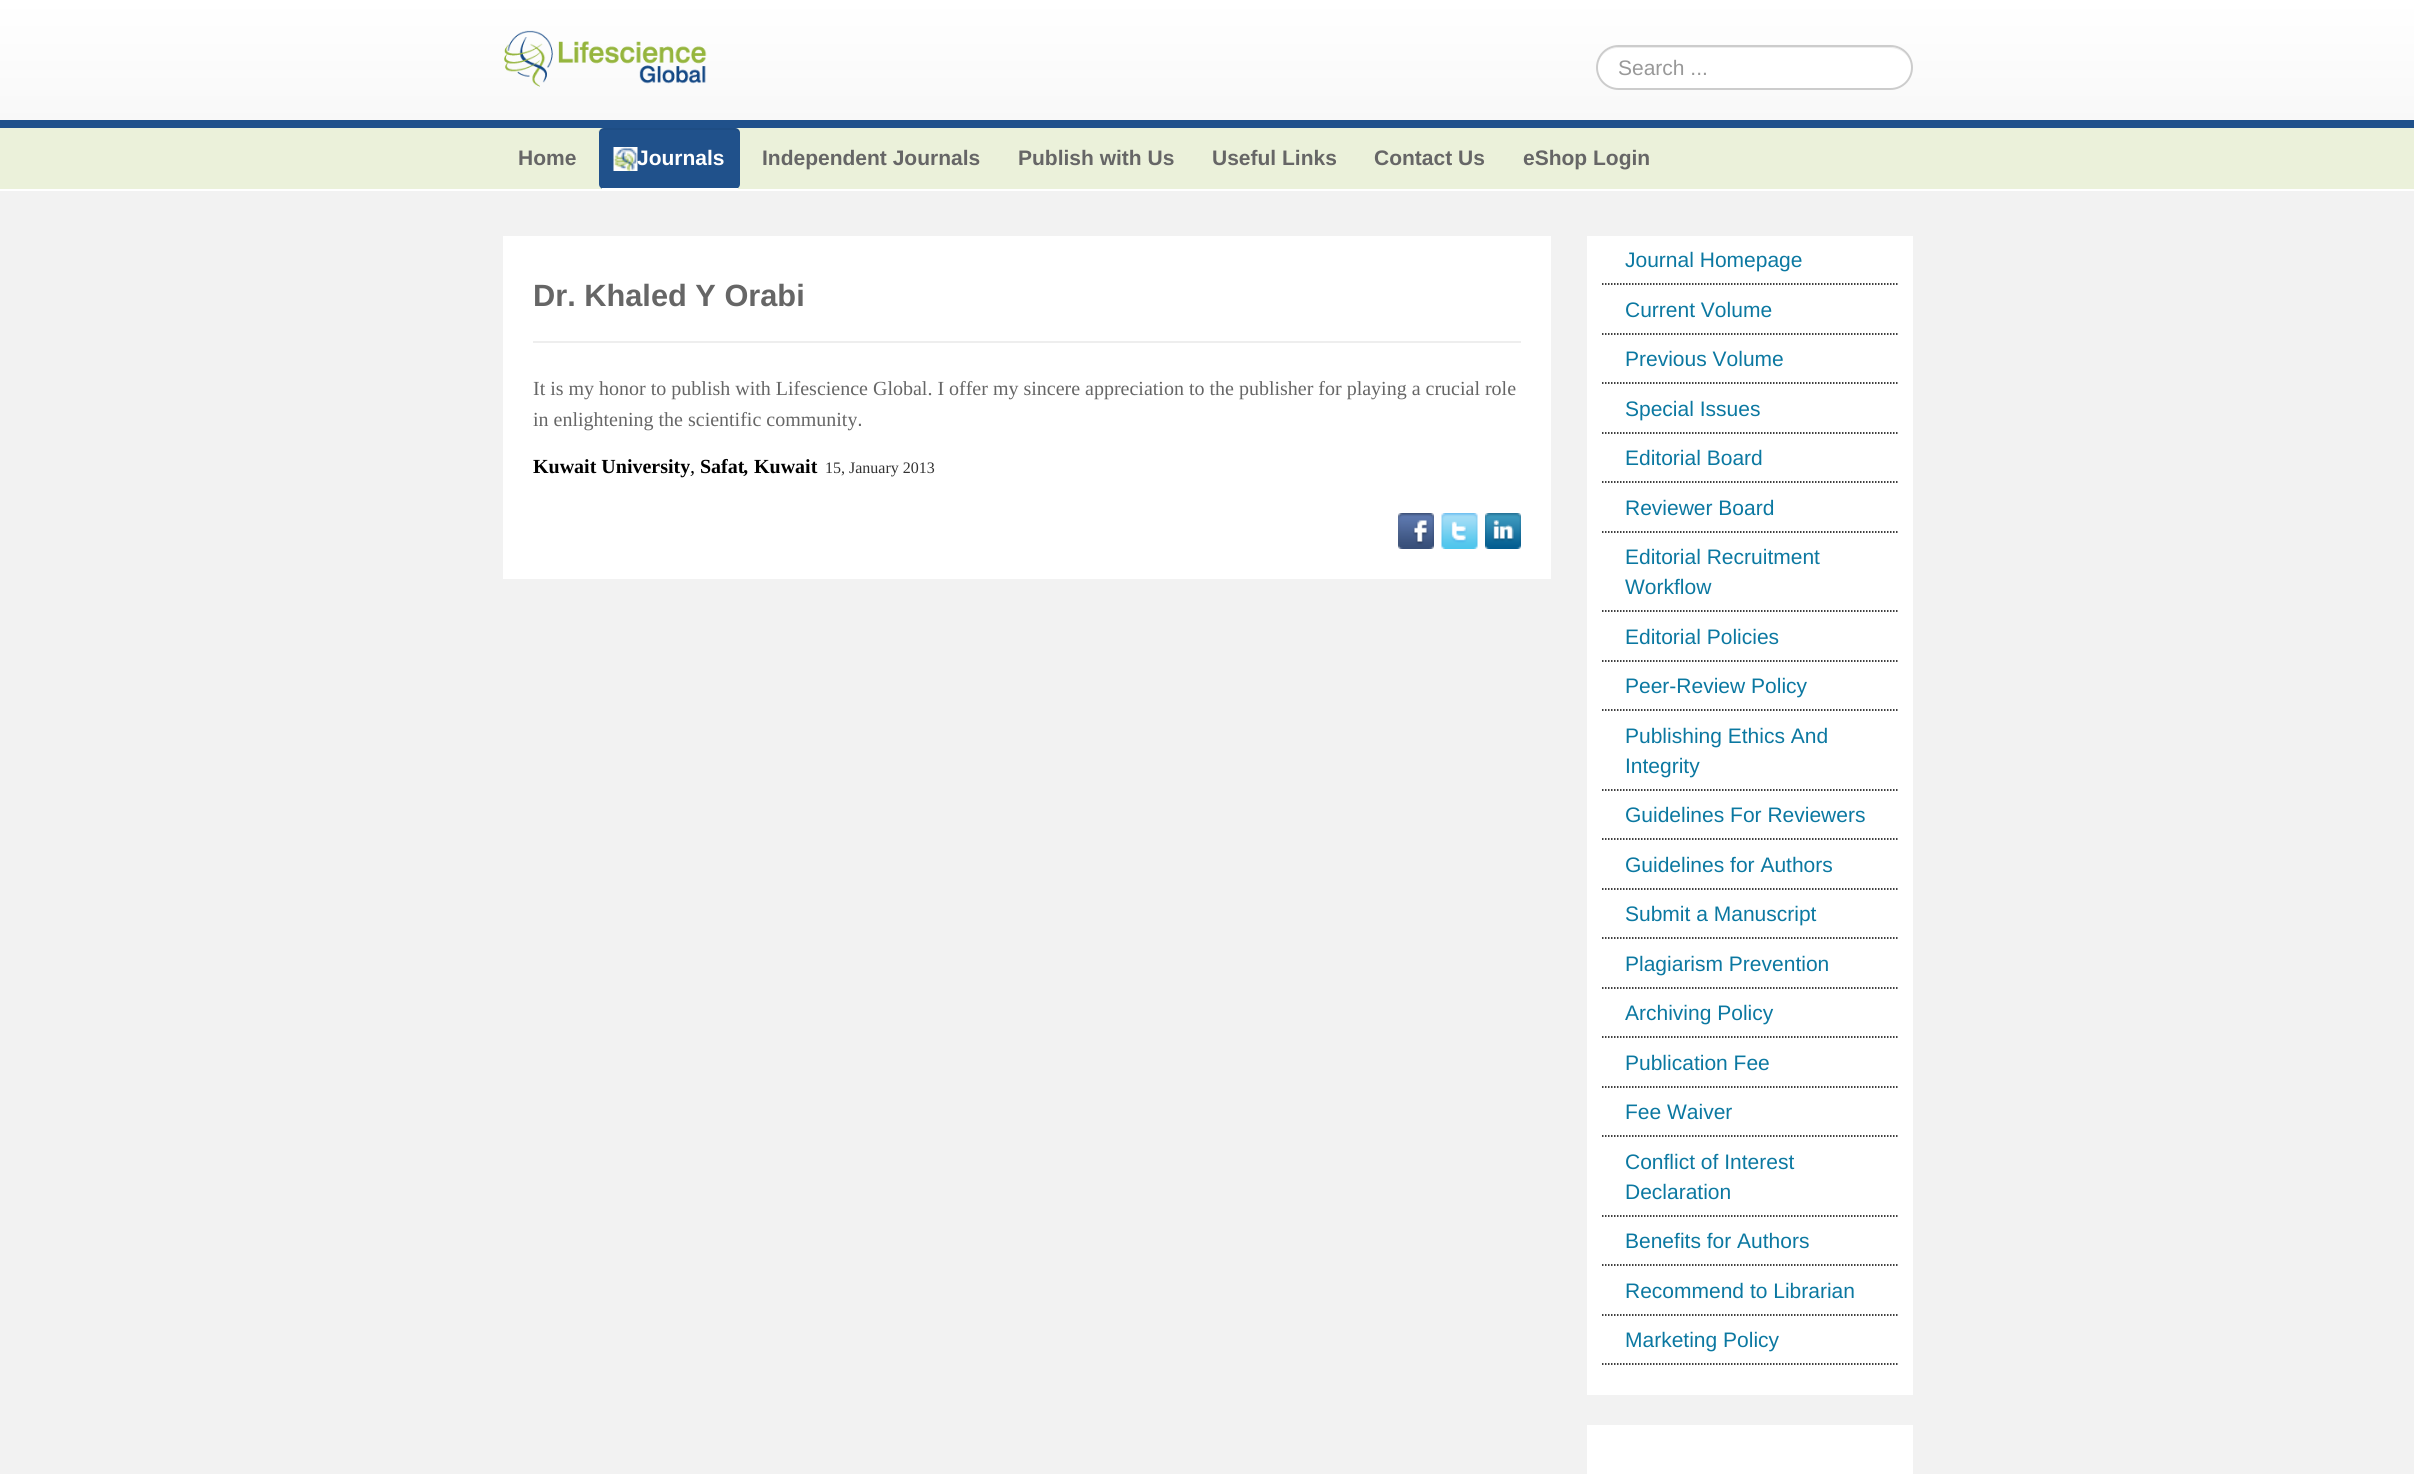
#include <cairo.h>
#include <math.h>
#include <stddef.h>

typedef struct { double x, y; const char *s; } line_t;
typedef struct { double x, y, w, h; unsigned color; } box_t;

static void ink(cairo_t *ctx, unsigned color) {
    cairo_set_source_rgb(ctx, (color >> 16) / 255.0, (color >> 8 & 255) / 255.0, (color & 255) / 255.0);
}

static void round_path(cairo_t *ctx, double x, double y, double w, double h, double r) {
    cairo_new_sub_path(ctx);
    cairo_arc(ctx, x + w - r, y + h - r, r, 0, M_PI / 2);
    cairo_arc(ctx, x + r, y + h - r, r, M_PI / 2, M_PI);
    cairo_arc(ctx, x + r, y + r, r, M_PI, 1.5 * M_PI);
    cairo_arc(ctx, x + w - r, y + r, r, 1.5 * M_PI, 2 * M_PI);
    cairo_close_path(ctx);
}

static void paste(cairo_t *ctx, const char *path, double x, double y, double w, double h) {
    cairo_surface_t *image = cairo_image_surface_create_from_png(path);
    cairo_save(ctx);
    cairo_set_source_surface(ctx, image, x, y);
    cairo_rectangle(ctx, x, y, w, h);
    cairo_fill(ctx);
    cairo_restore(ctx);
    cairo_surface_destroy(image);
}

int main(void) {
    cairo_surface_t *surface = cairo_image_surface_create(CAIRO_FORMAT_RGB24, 2414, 1474);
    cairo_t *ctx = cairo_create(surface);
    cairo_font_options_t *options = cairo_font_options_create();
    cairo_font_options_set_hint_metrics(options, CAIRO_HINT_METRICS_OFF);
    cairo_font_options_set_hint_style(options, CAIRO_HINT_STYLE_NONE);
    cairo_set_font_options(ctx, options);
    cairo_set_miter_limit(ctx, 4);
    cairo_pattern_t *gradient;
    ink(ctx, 0xF2F2F2);
    cairo_paint(ctx);
    gradient = cairo_pattern_create_linear(1208, 0, 1208, 120);
    cairo_pattern_add_color_stop_rgba(gradient, 0, 1, 1, 1, 1);
    cairo_pattern_add_color_stop_rgba(gradient, 1, 0.973, 0.973, 0.973, 1);
    cairo_set_source(ctx, gradient);
    cairo_pattern_destroy(gradient);
    cairo_rectangle(ctx, 0, 0, 2414, 120);
    cairo_fill(ctx);
    paste(ctx, "media/1.png", 504, 30, 203, 57);
    ink(ctx, 0xFFFFFF);
    round_path(ctx, 1596, 45, 317, 45, 22.5);
    cairo_fill(ctx);
    ink(ctx, 0xECECEC);
    cairo_new_path(ctx);
    cairo_move_to(ctx, 1618, 48);
    cairo_line_to(ctx, 1890, 48);
    cairo_curve_to(ctx, 1902, 48, 1911, 57, 1911, 68);
    cairo_curve_to(ctx, 1911, 57, 1902, 47, 1890, 47);
    cairo_line_to(ctx, 1619, 47);
    cairo_curve_to(ctx, 1607, 47, 1598, 57, 1598, 68);
    cairo_curve_to(ctx, 1598, 57, 1607, 48, 1618, 48);
    cairo_close_path(ctx);
    cairo_fill(ctx);
    round_path(ctx, 1597, 46, 315, 43, 21.5);
    ink(ctx, 0xCCCCCC);
    cairo_stroke(ctx);
    cairo_select_font_face(ctx, "Liberation Sans", CAIRO_FONT_SLANT_NORMAL, CAIRO_FONT_WEIGHT_NORMAL);
    cairo_set_font_size(ctx, 21);
    ink(ctx, 0x999999);
    cairo_move_to(ctx, 1618, 75);
    cairo_show_text(ctx, "Search ...");
    ink(ctx, 0xEBF1DA);
    cairo_rectangle(ctx, 0, 128, 2414, 61);
    cairo_fill(ctx);
    ink(ctx, 0x20518B);
    cairo_rectangle(ctx, 0, 120, 2414, 8);
    cairo_fill(ctx);
    cairo_select_font_face(ctx, "Liberation Sans", CAIRO_FONT_SLANT_NORMAL, CAIRO_FONT_WEIGHT_BOLD);
    ink(ctx, 0x666666);
    cairo_move_to(ctx, 518, 165);
    cairo_show_text(ctx, "Home");
    ink(ctx, 0x20518B);
    round_path(ctx, 599, 128, 141, 61, 5);
    cairo_fill(ctx);
    cairo_set_source_rgba(ctx, 0, 0, 0, 0.05);
    cairo_new_path(ctx);
    cairo_move_to(ctx, 603, 130);
    cairo_line_to(ctx, 735, 130);
    cairo_curve_to(ctx, 736, 130, 739, 132, 740, 133);
    cairo_line_to(ctx, 740, 132);
    cairo_curve_to(ctx, 740, 130, 737, 128, 735, 128);
    cairo_line_to(ctx, 603, 128);
    cairo_curve_to(ctx, 601, 128, 598, 130, 598, 132);
    cairo_line_to(ctx, 598, 133);
    cairo_curve_to(ctx, 599, 132, 602, 130, 603, 130);
    cairo_close_path(ctx);
    cairo_fill(ctx);
    ink(ctx, 0xFFFFFF);
    cairo_rectangle(ctx, 602, 188, 136, 1);
    cairo_fill(ctx);
    paste(ctx, "media/2.png", 613, 147, 25, 24);
    cairo_move_to(ctx, 637, 165);
    cairo_show_text(ctx, "Journals");
    ink(ctx, 0x666666);
    {
        static const line_t items[] = {
            {762, 165, "Independent Journals"},
            {1018, 165, "Publish with Us"},
            {1212, 165, "Useful Links"},
            {1374, 165, "Contact Us"},
            {1523, 165, "eShop Login"},
        };
        for (size_t i = 0; i < sizeof items / sizeof *items; i++) {
            cairo_move_to(ctx, items[i].x, items[i].y);
            cairo_show_text(ctx, items[i].s);
        }
    }
    {
        static const box_t items[] = {
            {0, 189, 2414, 2, 0xFFFFFF},
            {503, 236, 1048, 343, 0xFFFFFF},
            {533, 341, 988, 2, 0xEEEEEE},
        };
        for (size_t i = 0; i < sizeof items / sizeof *items; i++) {
            ink(ctx, items[i].color);
            cairo_rectangle(ctx, items[i].x, items[i].y, items[i].w, items[i].h);
            cairo_fill(ctx);
        }
    }
    cairo_set_font_size(ctx, 30.75);
    ink(ctx, 0x666666);
    cairo_move_to(ctx, 533, 306);
    cairo_show_text(ctx, "Dr. Khaled Y Orabi");
    cairo_select_font_face(ctx, "Liberation Serif", CAIRO_FONT_SLANT_NORMAL, CAIRO_FONT_WEIGHT_NORMAL);
    cairo_set_font_size(ctx, 20);
    cairo_move_to(ctx, 533, 395);
    cairo_show_text(ctx, "It is my honor to publish with Lifescience Global. I offer my sincere appreciation to the publisher for playing a crucial role");
    cairo_move_to(ctx, 533, 426);
    cairo_show_text(ctx, "in enlightening the scientific community");
    cairo_select_font_face(ctx, "Liberation Sans", CAIRO_FONT_SLANT_NORMAL, CAIRO_FONT_WEIGHT_NORMAL);
    cairo_set_font_size(ctx, 21);
    cairo_move_to(ctx, 857, 426);
    cairo_show_text(ctx, ".");
    cairo_select_font_face(ctx, "Liberation Serif", CAIRO_FONT_SLANT_NORMAL, CAIRO_FONT_WEIGHT_BOLD);
    cairo_set_font_size(ctx, 20);
    ink(ctx, 0x000000);
    cairo_move_to(ctx, 533, 473);
    cairo_show_text(ctx, "Kuwait University");
    cairo_select_font_face(ctx, "Liberation Serif", CAIRO_FONT_SLANT_ITALIC, CAIRO_FONT_WEIGHT_NORMAL);
    cairo_move_to(ctx, 690, 473);
    cairo_show_text(ctx, ",");
    cairo_select_font_face(ctx, "Liberation Serif", CAIRO_FONT_SLANT_NORMAL, CAIRO_FONT_WEIGHT_BOLD);
    cairo_move_to(ctx, 700, 473);
    cairo_show_text(ctx, "Safat");
    cairo_select_font_face(ctx, "Liberation Serif", CAIRO_FONT_SLANT_ITALIC, CAIRO_FONT_WEIGHT_BOLD);
    cairo_move_to(ctx, 744, 473);
    cairo_show_text(ctx, ",");
    cairo_select_font_face(ctx, "Liberation Serif", CAIRO_FONT_SLANT_NORMAL, CAIRO_FONT_WEIGHT_BOLD);
    cairo_move_to(ctx, 754, 473);
    cairo_show_text(ctx, "Kuwait");
    cairo_select_font_face(ctx, "Liberation Serif", CAIRO_FONT_SLANT_NORMAL, CAIRO_FONT_WEIGHT_NORMAL);
    cairo_set_font_size(ctx, 16);
    ink(ctx, 0x333333);
    cairo_move_to(ctx, 825, 473);
    cairo_show_text(ctx, "15, January 2013");
    paste(ctx, "media/3.png", 1398, 513, 36, 36);
    paste(ctx, "media/4.png", 1441, 513, 37, 36);
    paste(ctx, "media/5.png", 1485, 513, 36, 36);
    ink(ctx, 0xFFFFFF);
    cairo_rectangle(ctx, 1587, 236, 326, 1159);
    cairo_fill(ctx);
    cairo_new_path(ctx);
    cairo_move_to(ctx, 1602, 284);
    cairo_line_to(ctx, 1897.5, 284);
    ink(ctx, 0x000000);
    cairo_set_line_width(ctx, 1.5);
    cairo_set_dash(ctx, (double[]){1.5, 1.5}, 2, 0);
    cairo_stroke(ctx);
    cairo_select_font_face(ctx, "Liberation Sans", CAIRO_FONT_SLANT_NORMAL, CAIRO_FONT_WEIGHT_NORMAL);
    cairo_set_font_size(ctx, 21);
    ink(ctx, 0x0B78A1);
    cairo_move_to(ctx, 1625, 267);
    cairo_show_text(ctx, "Journal Homepage");
    cairo_new_path(ctx);
    cairo_move_to(ctx, 1602, 334);
    cairo_line_to(ctx, 1897.5, 334);
    ink(ctx, 0x000000);
    cairo_stroke(ctx);
    ink(ctx, 0x0B78A1);
    cairo_move_to(ctx, 1625, 317);
    cairo_show_text(ctx, "Current Volume");
    cairo_new_path(ctx);
    cairo_move_to(ctx, 1602, 383);
    cairo_line_to(ctx, 1897.5, 383);
    ink(ctx, 0x000000);
    cairo_stroke(ctx);
    ink(ctx, 0x0B78A1);
    cairo_move_to(ctx, 1625, 366);
    cairo_show_text(ctx, "Previous Volume");
    cairo_new_path(ctx);
    cairo_move_to(ctx, 1602, 433);
    cairo_line_to(ctx, 1897.5, 433);
    ink(ctx, 0x000000);
    cairo_stroke(ctx);
    ink(ctx, 0x0B78A1);
    cairo_move_to(ctx, 1625, 416);
    cairo_show_text(ctx, "Special Issues");
    cairo_new_path(ctx);
    cairo_move_to(ctx, 1602, 482);
    cairo_line_to(ctx, 1897.5, 482);
    ink(ctx, 0x000000);
    cairo_stroke(ctx);
    ink(ctx, 0x0B78A1);
    cairo_move_to(ctx, 1625, 465);
    cairo_show_text(ctx, "Editorial Board");
    cairo_new_path(ctx);
    cairo_move_to(ctx, 1602, 532);
    cairo_line_to(ctx, 1897.5, 532);
    ink(ctx, 0x000000);
    cairo_stroke(ctx);
    ink(ctx, 0x0B78A1);
    cairo_move_to(ctx, 1625, 515);
    cairo_show_text(ctx, "Reviewer Board");
    cairo_new_path(ctx);
    cairo_move_to(ctx, 1602, 611);
    cairo_line_to(ctx, 1897.5, 611);
    ink(ctx, 0x000000);
    cairo_stroke(ctx);
    ink(ctx, 0x0B78A1);
    cairo_move_to(ctx, 1625, 564);
    cairo_show_text(ctx, "Editorial Recruitment");
    cairo_move_to(ctx, 1625, 594);
    cairo_show_text(ctx, "Workflow");
    cairo_new_path(ctx);
    cairo_move_to(ctx, 1602, 661);
    cairo_line_to(ctx, 1897.5, 661);
    ink(ctx, 0x000000);
    cairo_stroke(ctx);
    ink(ctx, 0x0B78A1);
    cairo_move_to(ctx, 1625, 644);
    cairo_show_text(ctx, "Editorial Policies");
    cairo_new_path(ctx);
    cairo_move_to(ctx, 1602, 710);
    cairo_line_to(ctx, 1897.5, 710);
    ink(ctx, 0x000000);
    cairo_stroke(ctx);
    ink(ctx, 0x0B78A1);
    cairo_move_to(ctx, 1625, 693);
    cairo_show_text(ctx, "Peer-Review Policy");
    cairo_new_path(ctx);
    cairo_move_to(ctx, 1602, 790);
    cairo_line_to(ctx, 1897.5, 790);
    ink(ctx, 0x000000);
    cairo_stroke(ctx);
    ink(ctx, 0x0B78A1);
    cairo_move_to(ctx, 1625, 743);
    cairo_show_text(ctx, "Publishing Ethics And");
    cairo_move_to(ctx, 1625, 773);
    cairo_show_text(ctx, "Integrity");
    cairo_new_path(ctx);
    cairo_move_to(ctx, 1602, 839);
    cairo_line_to(ctx, 1897.5, 839);
    ink(ctx, 0x000000);
    cairo_stroke(ctx);
    ink(ctx, 0x0B78A1);
    cairo_move_to(ctx, 1625, 822);
    cairo_show_text(ctx, "Guidelines For Reviewers");
    cairo_new_path(ctx);
    cairo_move_to(ctx, 1602, 889);
    cairo_line_to(ctx, 1897.5, 889);
    ink(ctx, 0x000000);
    cairo_stroke(ctx);
    ink(ctx, 0x0B78A1);
    cairo_move_to(ctx, 1625, 872);
    cairo_show_text(ctx, "Guidelines for Authors");
    cairo_new_path(ctx);
    cairo_move_to(ctx, 1602, 938);
    cairo_line_to(ctx, 1897.5, 938);
    ink(ctx, 0x000000);
    cairo_stroke(ctx);
    ink(ctx, 0x0B78A1);
    cairo_move_to(ctx, 1625, 921);
    cairo_show_text(ctx, "Submit a Manuscript");
    cairo_new_path(ctx);
    cairo_move_to(ctx, 1602, 988);
    cairo_line_to(ctx, 1897.5, 988);
    ink(ctx, 0x000000);
    cairo_stroke(ctx);
    ink(ctx, 0x0B78A1);
    cairo_move_to(ctx, 1625, 971);
    cairo_show_text(ctx, "Plagiarism Prevention");
    cairo_new_path(ctx);
    cairo_move_to(ctx, 1602, 1037);
    cairo_line_to(ctx, 1897.5, 1037);
    ink(ctx, 0x000000);
    cairo_stroke(ctx);
    ink(ctx, 0x0B78A1);
    cairo_move_to(ctx, 1625, 1020);
    cairo_show_text(ctx, "Archiving Policy");
    cairo_new_path(ctx);
    cairo_move_to(ctx, 1602, 1087);
    cairo_line_to(ctx, 1897.5, 1087);
    ink(ctx, 0x000000);
    cairo_stroke(ctx);
    ink(ctx, 0x0B78A1);
    cairo_move_to(ctx, 1625, 1070);
    cairo_show_text(ctx, "Publication Fee");
    cairo_new_path(ctx);
    cairo_move_to(ctx, 1602, 1136);
    cairo_line_to(ctx, 1897.5, 1136);
    ink(ctx, 0x000000);
    cairo_stroke(ctx);
    ink(ctx, 0x0B78A1);
    cairo_move_to(ctx, 1625, 1119);
    cairo_show_text(ctx, "Fee Waiver");
    cairo_new_path(ctx);
    cairo_move_to(ctx, 1602, 1216);
    cairo_line_to(ctx, 1897.5, 1216);
    ink(ctx, 0x000000);
    cairo_stroke(ctx);
    ink(ctx, 0x0B78A1);
    cairo_move_to(ctx, 1625, 1169);
    cairo_show_text(ctx, "Conflict of Interest");
    cairo_move_to(ctx, 1625, 1199);
    cairo_show_text(ctx, "Declaration");
    cairo_new_path(ctx);
    cairo_move_to(ctx, 1602, 1265);
    cairo_line_to(ctx, 1897.5, 1265);
    ink(ctx, 0x000000);
    cairo_stroke(ctx);
    ink(ctx, 0x0B78A1);
    cairo_move_to(ctx, 1625, 1248);
    cairo_show_text(ctx, "Benefits for Authors");
    cairo_new_path(ctx);
    cairo_move_to(ctx, 1602, 1315);
    cairo_line_to(ctx, 1897.5, 1315);
    ink(ctx, 0x000000);
    cairo_stroke(ctx);
    ink(ctx, 0x0B78A1);
    cairo_move_to(ctx, 1625, 1298);
    cairo_show_text(ctx, "Recommend to Librarian");
    cairo_new_path(ctx);
    cairo_move_to(ctx, 1602, 1364);
    cairo_line_to(ctx, 1897.5, 1364);
    ink(ctx, 0x000000);
    cairo_stroke(ctx);
    ink(ctx, 0x0B78A1);
    cairo_move_to(ctx, 1625, 1347);
    cairo_show_text(ctx, "Marketing Policy");
    ink(ctx, 0xFFFFFF);
    cairo_rectangle(ctx, 1587, 1425, 326, 49);
    cairo_fill(ctx);
    cairo_surface_write_to_png(surface, "image.png");
    cairo_font_options_destroy(options);
    cairo_destroy(ctx);
    cairo_surface_destroy(surface);
    return 0;
}
